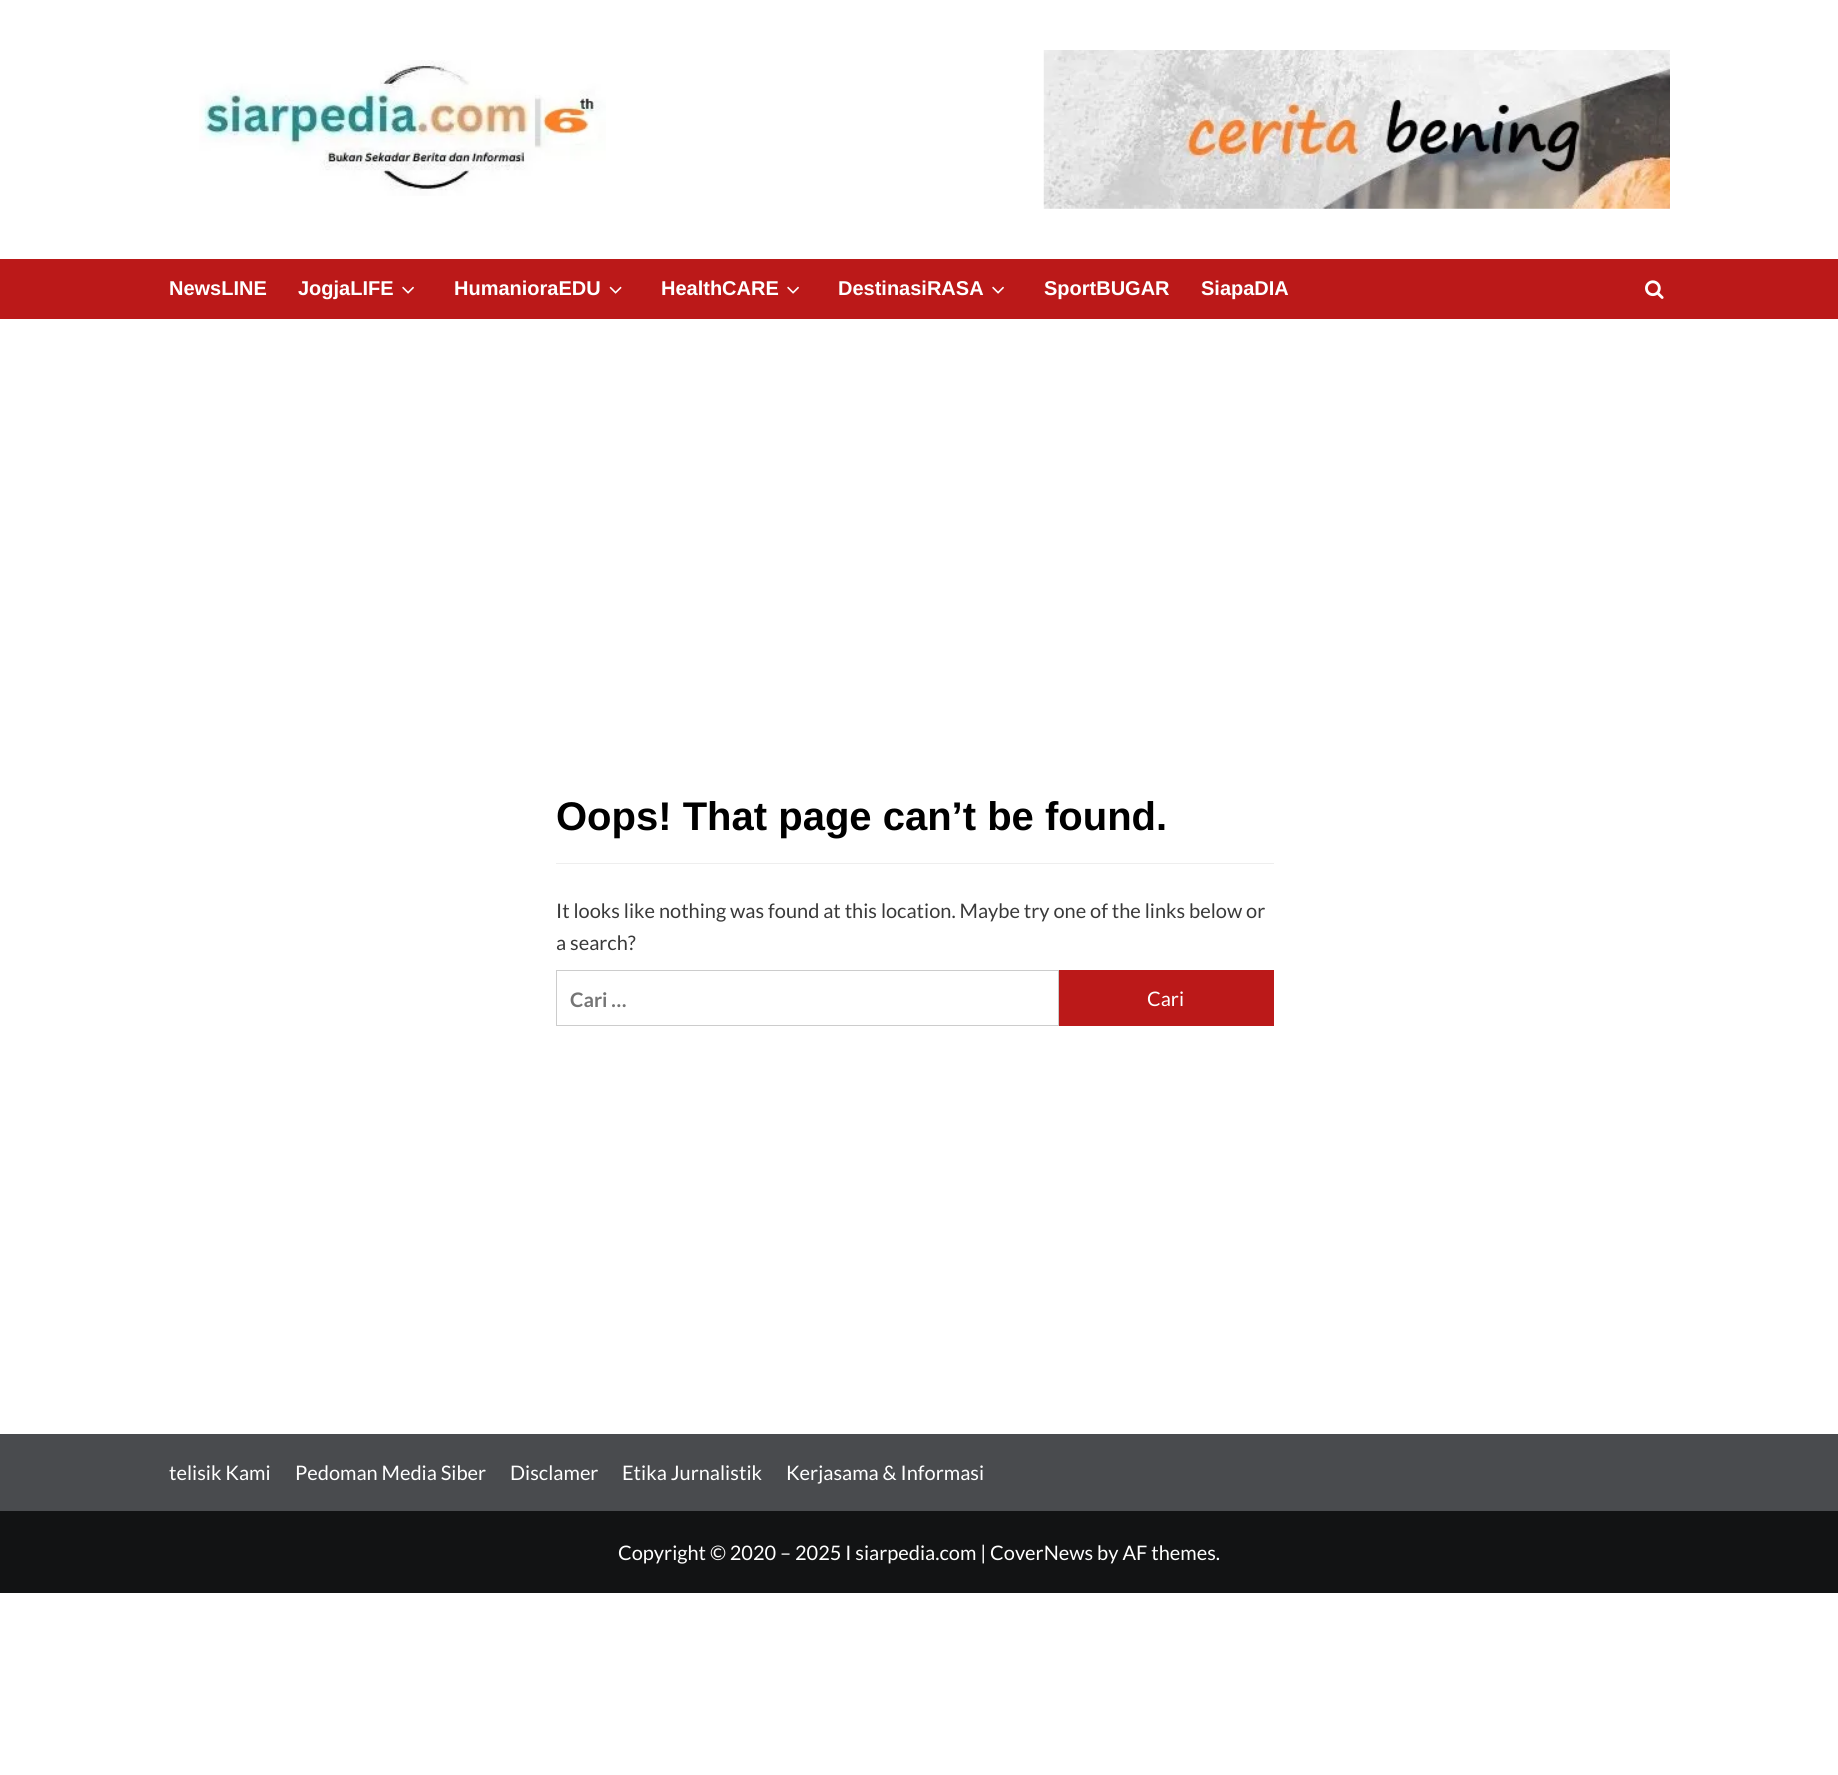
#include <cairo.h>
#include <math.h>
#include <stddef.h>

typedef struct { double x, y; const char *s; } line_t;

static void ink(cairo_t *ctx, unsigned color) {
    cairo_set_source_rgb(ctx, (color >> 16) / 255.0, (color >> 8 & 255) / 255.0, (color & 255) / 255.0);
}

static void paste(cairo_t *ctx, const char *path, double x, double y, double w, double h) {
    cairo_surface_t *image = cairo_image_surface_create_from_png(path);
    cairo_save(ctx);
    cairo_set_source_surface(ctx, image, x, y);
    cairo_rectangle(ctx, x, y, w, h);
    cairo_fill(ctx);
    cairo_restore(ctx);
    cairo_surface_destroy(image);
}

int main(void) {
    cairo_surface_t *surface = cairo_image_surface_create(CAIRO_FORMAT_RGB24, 1838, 1775);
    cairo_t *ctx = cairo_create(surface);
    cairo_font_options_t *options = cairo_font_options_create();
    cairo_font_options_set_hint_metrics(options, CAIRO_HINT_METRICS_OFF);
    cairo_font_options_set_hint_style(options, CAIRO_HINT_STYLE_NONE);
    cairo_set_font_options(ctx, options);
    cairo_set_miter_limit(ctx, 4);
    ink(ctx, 0xFFFFFF);
    cairo_paint(ctx);
    paste(ctx, "media/1.png", 199, 60, 407, 136);
    paste(ctx, "media/2.png", 1043, 50, 627, 159);
    ink(ctx, 0xBB1919);
    cairo_rectangle(ctx, 0, 259, 1838, 60);
    cairo_fill(ctx);
    cairo_select_font_face(ctx, "Liberation Sans", CAIRO_FONT_SLANT_NORMAL, CAIRO_FONT_WEIGHT_BOLD);
    cairo_set_font_size(ctx, 20);
    ink(ctx, 0xFFFFFF);
    cairo_move_to(ctx, 169, 295);
    cairo_show_text(ctx, "NewsLINE");
    cairo_move_to(ctx, 298, 295);
    cairo_show_text(ctx, "JogjaLIFE");
    paste(ctx, "media/3.png", 402, 286, 12, 8);
    cairo_move_to(ctx, 454, 295);
    cairo_show_text(ctx, "HumanioraEDU");
    paste(ctx, "media/4.png", 609, 286, 13, 8);
    cairo_move_to(ctx, 661, 295);
    cairo_show_text(ctx, "HealthCARE");
    paste(ctx, "media/3.png", 787, 286, 12, 8);
    cairo_move_to(ctx, 838, 295);
    cairo_show_text(ctx, "DestinasiRASA");
    paste(ctx, "media/3.png", 992, 286, 12, 8);
    cairo_move_to(ctx, 1044, 295);
    cairo_show_text(ctx, "SportBUGAR");
    cairo_move_to(ctx, 1201, 295);
    cairo_show_text(ctx, "SiapaDIA");
    paste(ctx, "media/5.png", 1645, 280, 19, 19);
    ink(ctx, 0xEEEEEE);
    cairo_rectangle(ctx, 556, 863, 718, 1);
    cairo_fill(ctx);
    cairo_set_font_size(ctx, 40);
    ink(ctx, 0x000000);
    cairo_move_to(ctx, 556, 830);
    cairo_show_text(ctx, "Oops! That page can’t be found.");
    cairo_select_font_face(ctx, "Lato", CAIRO_FONT_SLANT_NORMAL, CAIRO_FONT_WEIGHT_NORMAL);
    cairo_set_font_size(ctx, 20);
    ink(ctx, 0x3A3A3A);
    cairo_move_to(ctx, 556, 918);
    cairo_show_text(ctx, "It looks like nothing was found at this location. Maybe try one of the links below or");
    cairo_move_to(ctx, 556, 950);
    cairo_show_text(ctx, "a search?");
    cairo_rectangle(ctx, 556.5, 970.5, 502, 55);
    ink(ctx, 0xCCCCCC);
    cairo_set_line_width(ctx, 1);
    cairo_stroke(ctx);
    cairo_select_font_face(ctx, "Lato", CAIRO_FONT_SLANT_NORMAL, CAIRO_FONT_WEIGHT_BOLD);
    ink(ctx, 0x757575);
    cairo_move_to(ctx, 570, 1007);
    cairo_show_text(ctx, "Cari …");
    ink(ctx, 0xBB1919);
    cairo_rectangle(ctx, 1059, 970, 215, 56);
    cairo_fill(ctx);
    cairo_select_font_face(ctx, "Lato", CAIRO_FONT_SLANT_NORMAL, CAIRO_FONT_WEIGHT_NORMAL);
    ink(ctx, 0xFFFFFF);
    cairo_move_to(ctx, 1147, 1006);
    cairo_show_text(ctx, "Cari");
    ink(ctx, 0x494B4E);
    cairo_rectangle(ctx, 0, 1434, 1838, 77);
    cairo_fill(ctx);
    ink(ctx, 0xFFFFFF);
    {
        static const line_t items[] = {
            {169, 1480, "telisik Kami"},
            {295, 1480, "Pedoman Media Siber"},
            {510, 1480, "Disclamer"},
            {622, 1480, "Etika Jurnalistik"},
            {786, 1480, "Kerjasama & Informasi"},
        };
        for (size_t i = 0; i < sizeof items / sizeof *items; i++) {
            cairo_move_to(ctx, items[i].x, items[i].y);
            cairo_show_text(ctx, items[i].s);
        }
    }
    ink(ctx, 0x121314);
    cairo_rectangle(ctx, 0, 1511, 1838, 82);
    cairo_fill(ctx);
    ink(ctx, 0xFFFFFF);
    cairo_move_to(ctx, 618, 1560);
    cairo_show_text(ctx, "Copyright © 2020 – 2025 I siarpedia.com | CoverNews by AF themes.");
    cairo_surface_write_to_png(surface, "image.png");
    cairo_font_options_destroy(options);
    cairo_destroy(ctx);
    cairo_surface_destroy(surface);
    return 0;
}
